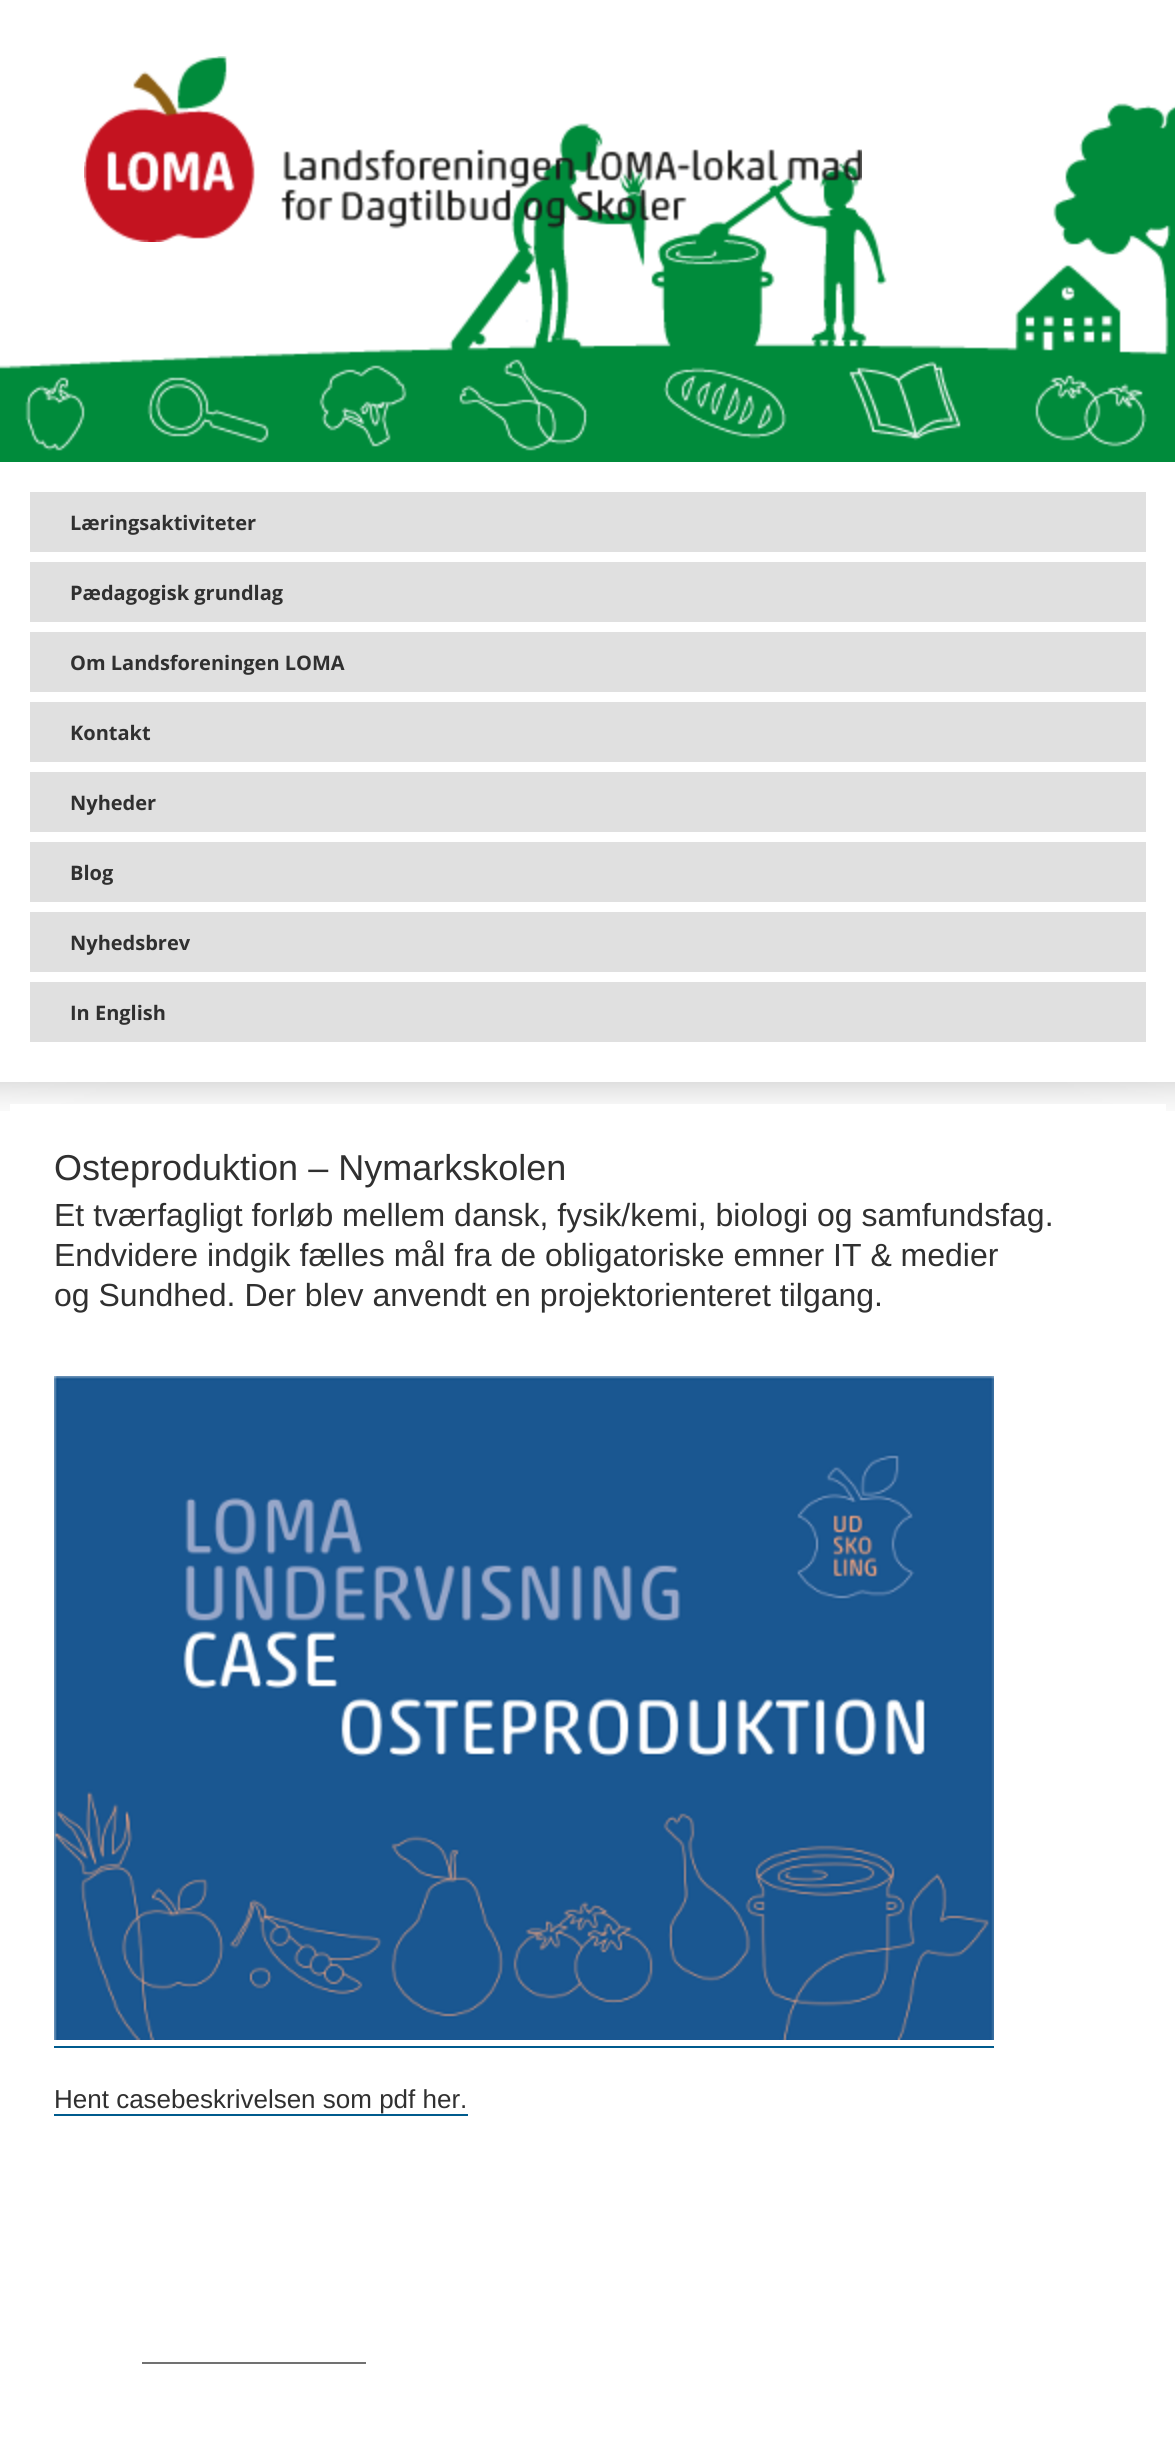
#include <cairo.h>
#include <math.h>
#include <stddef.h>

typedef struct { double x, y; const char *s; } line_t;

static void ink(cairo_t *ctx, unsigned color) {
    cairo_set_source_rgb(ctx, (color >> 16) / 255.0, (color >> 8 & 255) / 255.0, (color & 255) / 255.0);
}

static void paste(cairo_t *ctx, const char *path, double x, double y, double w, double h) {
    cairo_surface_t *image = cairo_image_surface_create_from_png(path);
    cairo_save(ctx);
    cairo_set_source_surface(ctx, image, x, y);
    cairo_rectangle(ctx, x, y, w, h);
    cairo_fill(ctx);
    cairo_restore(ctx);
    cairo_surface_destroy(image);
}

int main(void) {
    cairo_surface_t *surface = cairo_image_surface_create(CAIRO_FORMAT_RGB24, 1175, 2443);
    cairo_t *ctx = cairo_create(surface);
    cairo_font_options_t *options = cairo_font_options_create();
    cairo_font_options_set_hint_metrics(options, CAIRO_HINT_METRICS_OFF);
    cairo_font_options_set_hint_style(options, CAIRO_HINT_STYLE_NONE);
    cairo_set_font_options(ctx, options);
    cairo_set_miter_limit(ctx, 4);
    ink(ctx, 0xFFFFFF);
    cairo_paint(ctx);
    paste(ctx, "media/1.png", 0, 103, 1175, 359);
    paste(ctx, "media/2.png", 84, 56, 778, 186);
    ink(ctx, 0xE0E0E0);
    cairo_rectangle(ctx, 30, 492, 1116, 60);
    cairo_fill(ctx);
    cairo_select_font_face(ctx, "Open Sans", CAIRO_FONT_SLANT_NORMAL, CAIRO_FONT_WEIGHT_BOLD);
    cairo_set_font_size(ctx, 20);
    ink(ctx, 0x303030);
    cairo_move_to(ctx, 70, 530);
    cairo_show_text(ctx, "Læringsaktiviteter");
    ink(ctx, 0xE0E0E0);
    cairo_rectangle(ctx, 30, 562, 1116, 60);
    cairo_fill(ctx);
    ink(ctx, 0x303030);
    cairo_move_to(ctx, 70, 600);
    cairo_show_text(ctx, "Pædagogisk grundlag");
    ink(ctx, 0xE0E0E0);
    cairo_rectangle(ctx, 30, 632, 1116, 60);
    cairo_fill(ctx);
    ink(ctx, 0x303030);
    cairo_move_to(ctx, 70, 670);
    cairo_show_text(ctx, "Om Landsforeningen LOMA");
    ink(ctx, 0xE0E0E0);
    cairo_rectangle(ctx, 30, 702, 1116, 60);
    cairo_fill(ctx);
    ink(ctx, 0x303030);
    cairo_move_to(ctx, 70, 740);
    cairo_show_text(ctx, "Kontakt");
    ink(ctx, 0xE0E0E0);
    cairo_rectangle(ctx, 30, 772, 1116, 60);
    cairo_fill(ctx);
    ink(ctx, 0x303030);
    cairo_move_to(ctx, 70, 810);
    cairo_show_text(ctx, "Nyheder");
    ink(ctx, 0xE0E0E0);
    cairo_rectangle(ctx, 30, 842, 1116, 60);
    cairo_fill(ctx);
    ink(ctx, 0x303030);
    cairo_move_to(ctx, 70, 880);
    cairo_show_text(ctx, "Blog");
    ink(ctx, 0xE0E0E0);
    cairo_rectangle(ctx, 30, 912, 1116, 60);
    cairo_fill(ctx);
    ink(ctx, 0x303030);
    cairo_move_to(ctx, 70, 950);
    cairo_show_text(ctx, "Nyhedsbrev");
    ink(ctx, 0xE0E0E0);
    cairo_rectangle(ctx, 30, 982, 1116, 60);
    cairo_fill(ctx);
    ink(ctx, 0x303030);
    cairo_move_to(ctx, 70, 1020);
    cairo_show_text(ctx, "In English");
    paste(ctx, "media/3.png", 0, 1082, 1175, 29);
    ink(ctx, 0xFFFFFF);
    cairo_rectangle(ctx, 10, 1104, 1156, 7);
    cairo_fill(ctx);
    cairo_select_font_face(ctx, "Liberation Sans", CAIRO_FONT_SLANT_NORMAL, CAIRO_FONT_WEIGHT_NORMAL);
    cairo_set_font_size(ctx, 36);
    ink(ctx, 0x303030);
    cairo_move_to(ctx, 54, 1180);
    cairo_show_text(ctx, "Osteproduktion – Nymarkskolen");
    cairo_set_font_size(ctx, 32);
    {
        static const line_t items[] = {
            {54, 1226, "Et tværfagligt forløb mellem dansk, fysik/kemi, biologi og samfundsfag."},
            {54, 1266, "Endvidere indgik fælles mål fra de obligatoriske emner IT & medier"},
            {54, 1306, "og Sundhed. Der blev anvendt en projektorienteret tilgang."},
        };
        for (size_t i = 0; i < sizeof items / sizeof *items; i++) {
            cairo_move_to(ctx, items[i].x, items[i].y);
            cairo_show_text(ctx, items[i].s);
        }
    }
    paste(ctx, "media/4.png", 54, 1376, 940, 664);
    ink(ctx, 0x005B8D);
    cairo_rectangle(ctx, 54, 2046, 940, 2);
    cairo_fill(ctx);
    cairo_set_font_size(ctx, 26);
    ink(ctx, 0x303030);
    cairo_move_to(ctx, 54, 2108);
    cairo_show_text(ctx, "Hent casebeskrivelsen som pdf her.");
    ink(ctx, 0x005B8D);
    cairo_rectangle(ctx, 54, 2114, 414, 2);
    cairo_fill(ctx);
    ink(ctx, 0x717171);
    cairo_rectangle(ctx, 142, 2362, 224, 2);
    cairo_fill(ctx);
    cairo_surface_write_to_png(surface, "image.png");
    cairo_font_options_destroy(options);
    cairo_destroy(ctx);
    cairo_surface_destroy(surface);
    return 0;
}
